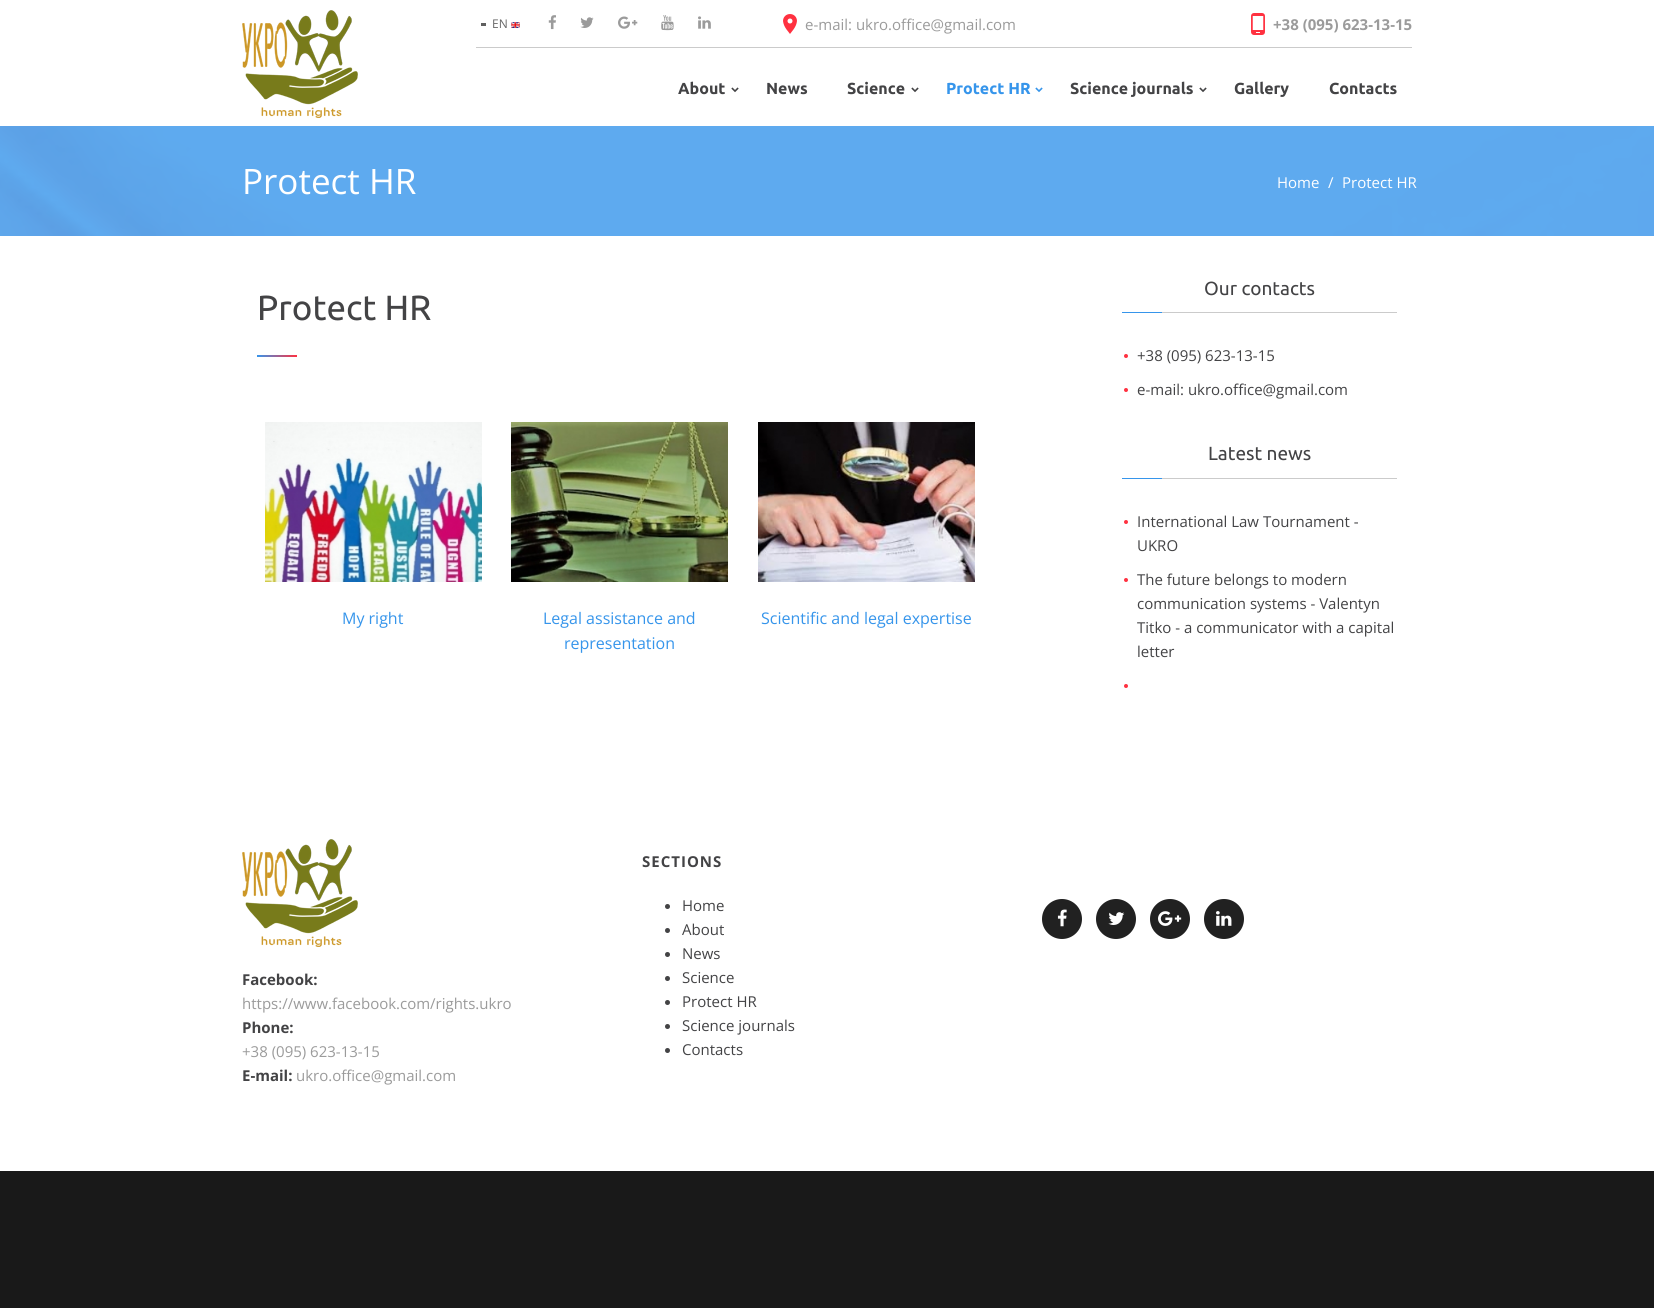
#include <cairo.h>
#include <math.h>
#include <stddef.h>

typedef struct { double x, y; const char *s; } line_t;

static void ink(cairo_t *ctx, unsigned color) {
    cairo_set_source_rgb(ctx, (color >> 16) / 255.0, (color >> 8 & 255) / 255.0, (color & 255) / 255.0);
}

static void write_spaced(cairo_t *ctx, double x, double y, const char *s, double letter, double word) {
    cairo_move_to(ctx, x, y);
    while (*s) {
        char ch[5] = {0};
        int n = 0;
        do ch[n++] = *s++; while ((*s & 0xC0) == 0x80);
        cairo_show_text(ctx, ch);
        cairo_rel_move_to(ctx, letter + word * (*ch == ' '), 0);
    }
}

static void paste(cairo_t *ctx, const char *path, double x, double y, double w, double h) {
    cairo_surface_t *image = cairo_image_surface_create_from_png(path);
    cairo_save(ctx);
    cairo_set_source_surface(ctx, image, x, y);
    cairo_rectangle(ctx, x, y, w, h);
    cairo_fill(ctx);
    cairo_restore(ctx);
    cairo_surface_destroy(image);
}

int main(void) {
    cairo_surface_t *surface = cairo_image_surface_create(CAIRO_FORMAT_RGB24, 1654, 1308);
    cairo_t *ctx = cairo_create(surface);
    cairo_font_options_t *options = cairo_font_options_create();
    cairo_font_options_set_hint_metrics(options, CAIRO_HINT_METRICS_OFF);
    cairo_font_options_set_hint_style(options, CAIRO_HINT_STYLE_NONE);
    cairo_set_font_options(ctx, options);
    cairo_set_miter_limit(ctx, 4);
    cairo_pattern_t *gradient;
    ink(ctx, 0x191919);
    cairo_paint(ctx);
    ink(ctx, 0xFFFFFF);
    cairo_rectangle(ctx, 0, 0, 1654, 1171);
    cairo_fill(ctx);
    paste(ctx, "media/1.png", 242, 10, 116, 108);
    ink(ctx, 0xCBCBCB);
    cairo_rectangle(ctx, 476, 47, 936, 1);
    cairo_fill(ctx);
    ink(ctx, 0x5F5F5F);
    cairo_rectangle(ctx, 481, 23, 5, 3);
    cairo_fill(ctx);
    cairo_select_font_face(ctx, "Open Sans", CAIRO_FONT_SLANT_NORMAL, CAIRO_FONT_WEIGHT_NORMAL);
    cairo_set_font_size(ctx, 12);
    ink(ctx, 0x666666);
    cairo_move_to(ctx, 492, 28);
    cairo_show_text(ctx, "EN");
    paste(ctx, "media/2.png", 511, 22, 9, 6);
    paste(ctx, "media/3.png", 548, 15, 8, 15);
    paste(ctx, "media/4.png", 580, 17, 14, 11);
    paste(ctx, "media/5.png", 618, 16, 20, 13);
    paste(ctx, "media/6.png", 661, 15, 13, 16);
    paste(ctx, "media/7.png", 698, 16, 13, 13);
    paste(ctx, "media/8.png", 783, 14, 14, 20);
    cairo_set_font_size(ctx, 15);
    ink(ctx, 0x9B9B9B);
    cairo_move_to(ctx, 805, 30);
    cairo_show_text(ctx, "e-mail: ukro.office@gmail.com");
    paste(ctx, "media/9.png", 1251, 13, 14, 22);
    cairo_select_font_face(ctx, "Open Sans", CAIRO_FONT_SLANT_NORMAL, CAIRO_FONT_WEIGHT_BOLD);
    cairo_move_to(ctx, 1273, 30);
    cairo_show_text(ctx, "+38 (095) 623-13-15");
    cairo_select_font_face(ctx, "Ubuntu", CAIRO_FONT_SLANT_NORMAL, CAIRO_FONT_WEIGHT_BOLD);
    cairo_set_font_size(ctx, 16);
    ink(ctx, 0x434345);
    cairo_move_to(ctx, 678, 94);
    cairo_show_text(ctx, "About");
    paste(ctx, "media/10.png", 731, 87, 8, 6);
    cairo_move_to(ctx, 766, 94);
    cairo_show_text(ctx, "News");
    cairo_move_to(ctx, 847, 94);
    cairo_show_text(ctx, "Science");
    paste(ctx, "media/10.png", 911, 87, 8, 6);
    ink(ctx, 0x3695EB);
    cairo_move_to(ctx, 946, 94);
    cairo_show_text(ctx, "Protect HR");
    paste(ctx, "media/11.png", 1035, 87, 8, 6);
    ink(ctx, 0x434345);
    cairo_move_to(ctx, 1070, 94);
    cairo_show_text(ctx, "Science journals");
    paste(ctx, "media/10.png", 1199, 87, 8, 6);
    cairo_move_to(ctx, 1234, 94);
    cairo_show_text(ctx, "Gallery");
    cairo_move_to(ctx, 1329, 94);
    cairo_show_text(ctx, "Contacts");
    paste(ctx, "media/12.png", 0, 126, 1654, 110);
    cairo_select_font_face(ctx, "Open Sans", CAIRO_FONT_SLANT_NORMAL, CAIRO_FONT_WEIGHT_NORMAL);
    cairo_set_font_size(ctx, 35);
    ink(ctx, 0xFFFFFF);
    cairo_move_to(ctx, 242, 194);
    cairo_show_text(ctx, "Protect HR");
    cairo_set_font_size(ctx, 15);
    {
        static const line_t items[] = {
            {1277, 188, "Home"},
            {1328, 188, "/"},
            {1342, 188, "Protect HR"},
        };
        for (size_t i = 0; i < sizeof items / sizeof *items; i++) {
            cairo_move_to(ctx, items[i].x, items[i].y);
            cairo_show_text(ctx, items[i].s);
        }
    }
    cairo_select_font_face(ctx, "Ubuntu", CAIRO_FONT_SLANT_NORMAL, CAIRO_FONT_WEIGHT_NORMAL);
    cairo_set_font_size(ctx, 35);
    ink(ctx, 0x434345);
    cairo_move_to(ctx, 257, 320);
    cairo_show_text(ctx, "Protect HR");
    gradient = cairo_pattern_create_linear(257, 356, 297, 356);
    cairo_pattern_add_color_stop_rgba(gradient, 0, 0.212, 0.584, 0.922, 1);
    cairo_pattern_add_color_stop_rgba(gradient, 1, 1, 0.192, 0.251, 1);
    cairo_set_source(ctx, gradient);
    cairo_pattern_destroy(gradient);
    cairo_rectangle(ctx, 257, 355, 40, 2);
    cairo_fill(ctx);
    paste(ctx, "media/13.png", 265, 422, 217, 160);
    cairo_select_font_face(ctx, "Open Sans", CAIRO_FONT_SLANT_NORMAL, CAIRO_FONT_WEIGHT_NORMAL);
    cairo_set_font_size(ctx, 16);
    ink(ctx, 0x3695EB);
    cairo_move_to(ctx, 342, 624);
    cairo_show_text(ctx, "My right");
    paste(ctx, "media/14.png", 511, 422, 217, 160);
    cairo_move_to(ctx, 543, 624);
    cairo_show_text(ctx, "Legal assistance and");
    cairo_move_to(ctx, 564, 649);
    cairo_show_text(ctx, "representation");
    paste(ctx, "media/15.png", 758, 422, 217, 160);
    cairo_move_to(ctx, 761, 624);
    cairo_show_text(ctx, "Scientific and legal expertise");
    cairo_select_font_face(ctx, "Ubuntu", CAIRO_FONT_SLANT_NORMAL, CAIRO_FONT_WEIGHT_NORMAL);
    cairo_set_font_size(ctx, 19);
    ink(ctx, 0x434345);
    cairo_move_to(ctx, 1204, 295);
    cairo_show_text(ctx, "Our contacts");
    ink(ctx, 0xCBCBCB);
    cairo_rectangle(ctx, 1162, 312, 235, 1);
    cairo_fill(ctx);
    ink(ctx, 0x3695EB);
    cairo_rectangle(ctx, 1122, 312, 40, 1);
    cairo_fill(ctx);
    ink(ctx, 0xFF3140);
    cairo_arc(ctx, 1126, 356, 2, 0, 2 * M_PI);
    cairo_fill(ctx);
    cairo_select_font_face(ctx, "Open Sans", CAIRO_FONT_SLANT_NORMAL, CAIRO_FONT_WEIGHT_NORMAL);
    cairo_set_font_size(ctx, 15);
    ink(ctx, 0x434345);
    cairo_move_to(ctx, 1137, 361);
    cairo_show_text(ctx, "+38 (095) 623-13-15");
    ink(ctx, 0xFF3140);
    cairo_new_path(ctx);
    cairo_arc(ctx, 1126, 390, 2, 0, 2 * M_PI);
    cairo_fill(ctx);
    ink(ctx, 0x434345);
    cairo_move_to(ctx, 1137, 395);
    cairo_show_text(ctx, "e-mail: ukro.office@gmail.com");
    cairo_select_font_face(ctx, "Ubuntu", CAIRO_FONT_SLANT_NORMAL, CAIRO_FONT_WEIGHT_NORMAL);
    cairo_set_font_size(ctx, 19);
    cairo_move_to(ctx, 1208, 460);
    cairo_show_text(ctx, "Latest news");
    ink(ctx, 0xCBCBCB);
    cairo_rectangle(ctx, 1162, 478, 235, 1);
    cairo_fill(ctx);
    ink(ctx, 0x3695EB);
    cairo_rectangle(ctx, 1122, 478, 40, 1);
    cairo_fill(ctx);
    ink(ctx, 0xFF3140);
    cairo_arc(ctx, 1126, 522, 2, 0, 2 * M_PI);
    cairo_fill(ctx);
    cairo_select_font_face(ctx, "Open Sans", CAIRO_FONT_SLANT_NORMAL, CAIRO_FONT_WEIGHT_NORMAL);
    cairo_set_font_size(ctx, 15);
    ink(ctx, 0x434345);
    cairo_move_to(ctx, 1137, 527);
    cairo_show_text(ctx, "International Law Tournament -");
    cairo_move_to(ctx, 1137, 551);
    cairo_show_text(ctx, "UKRO");
    ink(ctx, 0xFF3140);
    cairo_new_path(ctx);
    cairo_arc(ctx, 1126, 580, 2, 0, 2 * M_PI);
    cairo_fill(ctx);
    ink(ctx, 0x434345);
    {
        static const line_t items[] = {
            {1137, 585, "The future belongs to modern"},
            {1137, 609, "communication systems - Valentyn"},
            {1137, 633, "Titko - a communicator with a capital"},
            {1137, 657, "letter"},
        };
        for (size_t i = 0; i < sizeof items / sizeof *items; i++) {
            cairo_move_to(ctx, items[i].x, items[i].y);
            cairo_show_text(ctx, items[i].s);
        }
    }
    ink(ctx, 0xFF3140);
    cairo_new_path(ctx);
    cairo_arc(ctx, 1126, 686, 2, 0, 2 * M_PI);
    cairo_fill(ctx);
    cairo_select_font_face(ctx, "Open Sans", CAIRO_FONT_SLANT_NORMAL, CAIRO_FONT_WEIGHT_BOLD);
    ink(ctx, 0x434345);
    write_spaced(ctx, 642, 867, "SECTIONS", 1, 0);
    cairo_new_path(ctx);
    cairo_arc(ctx, 667.5, 906.5, 2.5, 0, 2 * M_PI);
    cairo_fill(ctx);
    cairo_select_font_face(ctx, "Open Sans", CAIRO_FONT_SLANT_NORMAL, CAIRO_FONT_WEIGHT_NORMAL);
    cairo_move_to(ctx, 682, 911);
    cairo_show_text(ctx, "Home");
    cairo_new_path(ctx);
    cairo_arc(ctx, 667.5, 930.5, 2.5, 0, 2 * M_PI);
    cairo_fill(ctx);
    cairo_move_to(ctx, 682, 935);
    cairo_show_text(ctx, "About");
    cairo_new_path(ctx);
    cairo_arc(ctx, 667.5, 954.5, 2.5, 0, 2 * M_PI);
    cairo_fill(ctx);
    cairo_move_to(ctx, 682, 959);
    cairo_show_text(ctx, "News");
    cairo_new_path(ctx);
    cairo_arc(ctx, 667.5, 978.5, 2.5, 0, 2 * M_PI);
    cairo_fill(ctx);
    cairo_move_to(ctx, 682, 983);
    cairo_show_text(ctx, "Science");
    cairo_new_path(ctx);
    cairo_arc(ctx, 667.5, 1002.5, 2.5, 0, 2 * M_PI);
    cairo_fill(ctx);
    cairo_move_to(ctx, 682, 1007);
    cairo_show_text(ctx, "Protect HR");
    cairo_new_path(ctx);
    cairo_arc(ctx, 667.5, 1026.5, 2.5, 0, 2 * M_PI);
    cairo_fill(ctx);
    cairo_move_to(ctx, 682, 1031);
    cairo_show_text(ctx, "Science journals");
    cairo_new_path(ctx);
    cairo_arc(ctx, 667.5, 1050.5, 2.5, 0, 2 * M_PI);
    cairo_fill(ctx);
    cairo_move_to(ctx, 682, 1055);
    cairo_show_text(ctx, "Contacts");
    ink(ctx, 0x212121);
    cairo_new_path(ctx);
    cairo_arc(ctx, 1062, 919, 20, 0, 2 * M_PI);
    cairo_fill(ctx);
    paste(ctx, "media/16.png", 1057, 909, 10, 18);
    cairo_arc(ctx, 1116, 919, 20, 0, 2 * M_PI);
    cairo_fill(ctx);
    paste(ctx, "media/17.png", 1108, 912, 17, 13);
    cairo_arc(ctx, 1170, 919, 20, 0, 2 * M_PI);
    cairo_fill(ctx);
    paste(ctx, "media/18.png", 1158, 911, 24, 15);
    cairo_arc(ctx, 1224, 919, 20, 0, 2 * M_PI);
    cairo_fill(ctx);
    paste(ctx, "media/19.png", 1216, 911, 16, 15);
    paste(ctx, "media/1.png", 242, 839, 116, 108);
    cairo_select_font_face(ctx, "Open Sans", CAIRO_FONT_SLANT_NORMAL, CAIRO_FONT_WEIGHT_BOLD);
    ink(ctx, 0x434345);
    cairo_move_to(ctx, 242, 985);
    cairo_show_text(ctx, "Facebook:");
    cairo_select_font_face(ctx, "Open Sans", CAIRO_FONT_SLANT_NORMAL, CAIRO_FONT_WEIGHT_NORMAL);
    ink(ctx, 0x9B9B9B);
    cairo_move_to(ctx, 242, 1009);
    cairo_show_text(ctx, "https://www.facebook.com/rights.ukro");
    cairo_select_font_face(ctx, "Open Sans", CAIRO_FONT_SLANT_NORMAL, CAIRO_FONT_WEIGHT_BOLD);
    ink(ctx, 0x434345);
    cairo_move_to(ctx, 242, 1033);
    cairo_show_text(ctx, "Phone:");
    cairo_select_font_face(ctx, "Open Sans", CAIRO_FONT_SLANT_NORMAL, CAIRO_FONT_WEIGHT_NORMAL);
    ink(ctx, 0x9B9B9B);
    cairo_move_to(ctx, 242, 1057);
    cairo_show_text(ctx, "+38 (095) 623-13-15");
    cairo_select_font_face(ctx, "Open Sans", CAIRO_FONT_SLANT_NORMAL, CAIRO_FONT_WEIGHT_BOLD);
    ink(ctx, 0x434345);
    cairo_move_to(ctx, 242, 1081);
    cairo_show_text(ctx, "E-mail:");
    cairo_select_font_face(ctx, "Open Sans", CAIRO_FONT_SLANT_NORMAL, CAIRO_FONT_WEIGHT_NORMAL);
    ink(ctx, 0x9B9B9B);
    cairo_move_to(ctx, 296, 1081);
    cairo_show_text(ctx, "ukro.office@gmail.com");
    cairo_surface_write_to_png(surface, "image.png");
    cairo_font_options_destroy(options);
    cairo_destroy(ctx);
    cairo_surface_destroy(surface);
    return 0;
}
